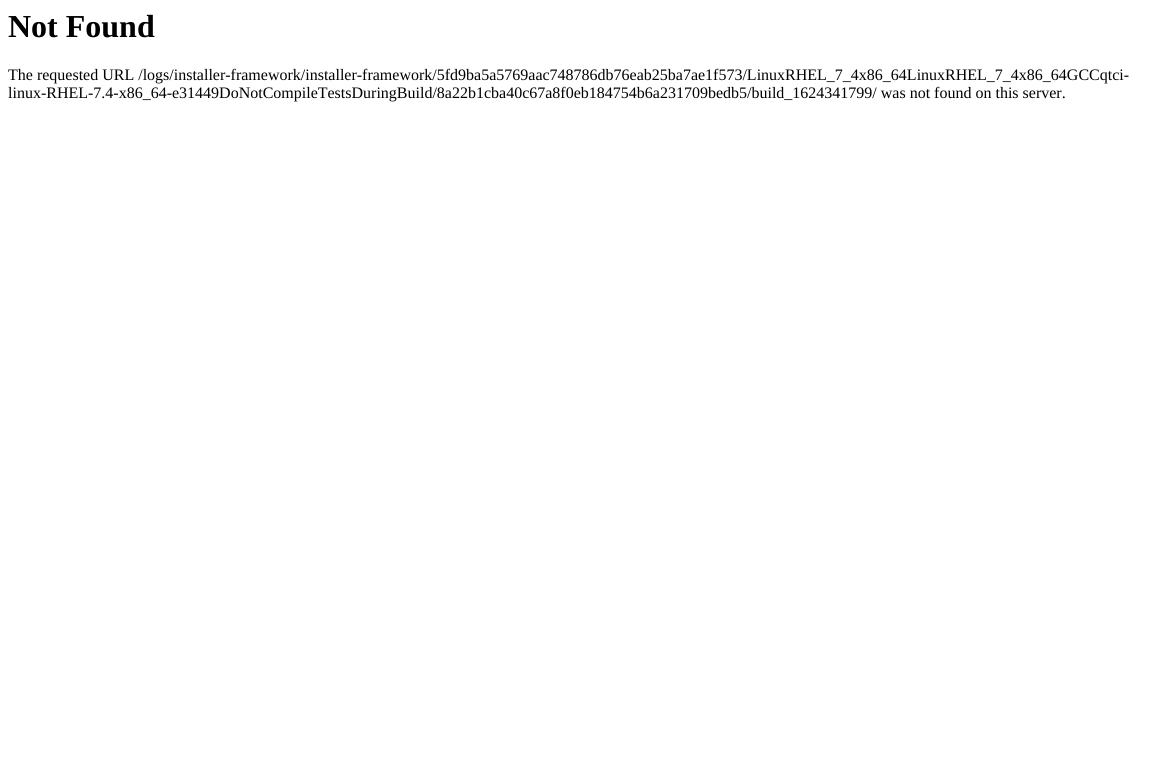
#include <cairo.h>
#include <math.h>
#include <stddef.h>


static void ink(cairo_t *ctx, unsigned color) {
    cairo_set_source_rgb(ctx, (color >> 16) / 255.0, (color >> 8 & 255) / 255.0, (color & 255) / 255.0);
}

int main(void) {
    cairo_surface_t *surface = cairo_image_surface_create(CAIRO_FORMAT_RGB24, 1159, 781);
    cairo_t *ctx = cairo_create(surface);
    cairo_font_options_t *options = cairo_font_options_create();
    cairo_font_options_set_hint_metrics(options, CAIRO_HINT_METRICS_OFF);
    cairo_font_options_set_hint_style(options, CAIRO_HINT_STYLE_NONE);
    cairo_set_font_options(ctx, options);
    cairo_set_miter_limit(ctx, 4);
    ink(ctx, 0xFFFFFF);
    cairo_paint(ctx);
    cairo_select_font_face(ctx, "Liberation Serif", CAIRO_FONT_SLANT_NORMAL, CAIRO_FONT_WEIGHT_BOLD);
    cairo_set_font_size(ctx, 32);
    ink(ctx, 0x000000);
    cairo_move_to(ctx, 8, 37);
    cairo_show_text(ctx, "Not Found");
    cairo_select_font_face(ctx, "Liberation Serif", CAIRO_FONT_SLANT_NORMAL, CAIRO_FONT_WEIGHT_NORMAL);
    cairo_set_font_size(ctx, 16);
    cairo_move_to(ctx, 8, 80);
    cairo_show_text(ctx, "The requested URL /logs/installer-framework/installer-framework/5fd9ba5a5769aac748786db76eab25ba7ae1f573/LinuxRHEL_7_4x86_64LinuxRHEL_7_4x86_64GCCqtci-");
    cairo_move_to(ctx, 8, 98);
    cairo_show_text(ctx, "linux-RHEL-7.4-x86_64-e31449DoNotCompileTestsDuringBuild/8a22b1cba40c67a8f0eb184754b6a231709bedb5/build_1624341799/ was not found on this server.");
    cairo_surface_write_to_png(surface, "image.png");
    cairo_font_options_destroy(options);
    cairo_destroy(ctx);
    cairo_surface_destroy(surface);
    return 0;
}
